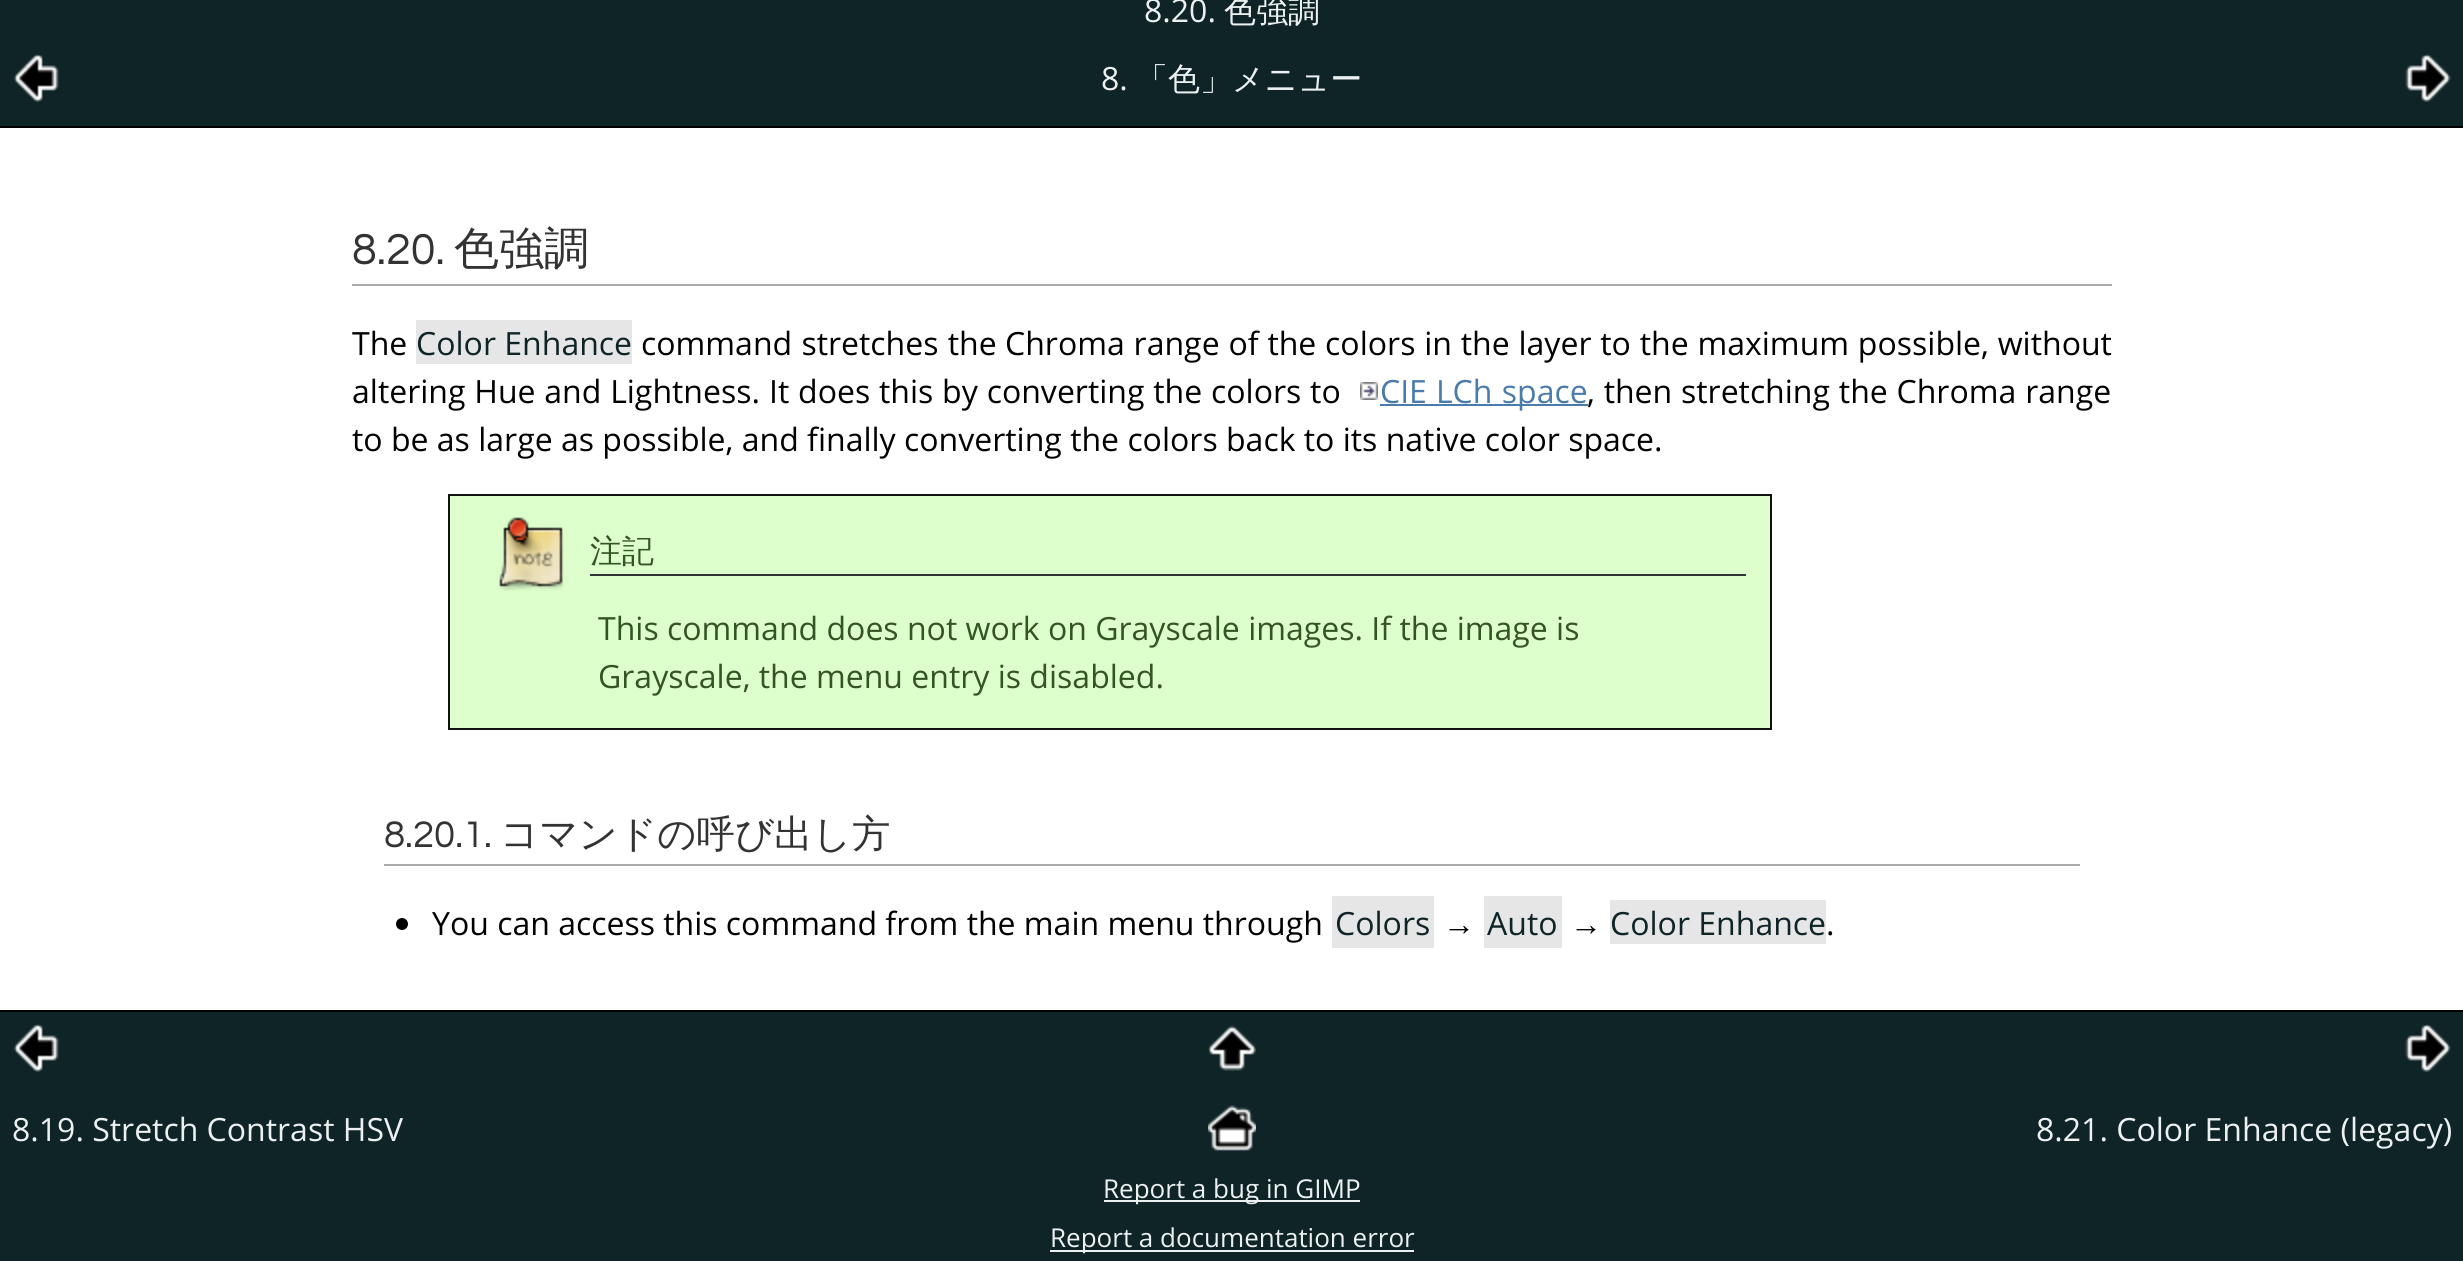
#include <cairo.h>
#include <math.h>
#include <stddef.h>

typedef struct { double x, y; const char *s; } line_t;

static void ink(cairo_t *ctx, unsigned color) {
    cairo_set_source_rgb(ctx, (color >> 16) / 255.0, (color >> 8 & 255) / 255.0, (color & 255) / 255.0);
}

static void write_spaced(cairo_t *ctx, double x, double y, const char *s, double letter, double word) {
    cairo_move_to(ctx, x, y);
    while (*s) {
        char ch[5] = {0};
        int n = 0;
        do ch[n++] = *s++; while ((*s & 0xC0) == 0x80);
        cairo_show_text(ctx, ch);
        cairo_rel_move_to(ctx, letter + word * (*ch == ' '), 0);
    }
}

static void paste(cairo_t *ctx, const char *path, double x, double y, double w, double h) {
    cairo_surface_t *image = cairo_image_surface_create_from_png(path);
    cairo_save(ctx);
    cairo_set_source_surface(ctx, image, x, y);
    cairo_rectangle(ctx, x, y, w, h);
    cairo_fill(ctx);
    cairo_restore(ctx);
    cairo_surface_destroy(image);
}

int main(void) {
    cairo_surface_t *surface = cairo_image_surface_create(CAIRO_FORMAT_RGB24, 2463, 1261);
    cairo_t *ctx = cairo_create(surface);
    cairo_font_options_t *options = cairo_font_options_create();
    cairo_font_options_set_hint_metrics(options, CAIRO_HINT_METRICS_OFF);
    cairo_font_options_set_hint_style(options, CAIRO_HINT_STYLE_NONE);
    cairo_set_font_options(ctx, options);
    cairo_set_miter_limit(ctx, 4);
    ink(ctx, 0xFFFFFF);
    cairo_paint(ctx);
    ink(ctx, 0x0E2426);
    cairo_rectangle(ctx, 0, 0, 2463, 126);
    cairo_fill(ctx);
    ink(ctx, 0x000000);
    cairo_rectangle(ctx, 0, 126, 2463, 2);
    cairo_fill(ctx);
    cairo_select_font_face(ctx, "Open Sans", CAIRO_FONT_SLANT_NORMAL, CAIRO_FONT_WEIGHT_NORMAL);
    cairo_set_font_size(ctx, 32);
    ink(ctx, 0xECF0F1);
    cairo_move_to(ctx, 1144, 22);
    cairo_show_text(ctx, "8.20.");
    cairo_select_font_face(ctx, "WenQuanYi Zen Hei Medium", CAIRO_FONT_SLANT_NORMAL, CAIRO_FONT_WEIGHT_NORMAL);
    cairo_move_to(ctx, 1224, 22);
    cairo_show_text(ctx, "色強調");
    paste(ctx, "media/1.png", 13, 54, 46, 48);
    cairo_select_font_face(ctx, "Open Sans", CAIRO_FONT_SLANT_NORMAL, CAIRO_FONT_WEIGHT_NORMAL);
    cairo_move_to(ctx, 1101, 90);
    cairo_show_text(ctx, "8.");
    cairo_select_font_face(ctx, "WenQuanYi Zen Hei Medium", CAIRO_FONT_SLANT_NORMAL, CAIRO_FONT_WEIGHT_NORMAL);
    cairo_move_to(ctx, 1136, 90);
    cairo_show_text(ctx, "「色」メニュー");
    paste(ctx, "media/2.png", 2405, 54, 46, 48);
    ink(ctx, 0xAAAAAA);
    cairo_rectangle(ctx, 352, 284, 1760, 2);
    cairo_fill(ctx);
    cairo_select_font_face(ctx, "Questrial", CAIRO_FONT_SLANT_NORMAL, CAIRO_FONT_WEIGHT_NORMAL);
    cairo_set_font_size(ctx, 45);
    ink(ctx, 0x333333);
    cairo_move_to(ctx, 352, 264);
    cairo_show_text(ctx, "8.20.");
    cairo_select_font_face(ctx, "WenQuanYi Zen Hei Medium", CAIRO_FONT_SLANT_NORMAL, CAIRO_FONT_WEIGHT_NORMAL);
    cairo_move_to(ctx, 454, 264);
    cairo_show_text(ctx, "色強調");
    cairo_select_font_face(ctx, "Open Sans", CAIRO_FONT_SLANT_NORMAL, CAIRO_FONT_WEIGHT_NORMAL);
    cairo_set_font_size(ctx, 32);
    ink(ctx, 0x000000);
    cairo_move_to(ctx, 352, 355);
    cairo_show_text(ctx, "The");
    ink(ctx, 0xE6E6E6);
    cairo_rectangle(ctx, 416, 320, 216, 44);
    cairo_fill(ctx);
    ink(ctx, 0x0E2426);
    cairo_move_to(ctx, 416, 355);
    cairo_show_text(ctx, "Color Enhance");
    ink(ctx, 0x000000);
    write_spaced(ctx, 641, 355, "command stretches the", 0, 1);
    {
        static const line_t items[] = {
            {1005, 355, "Chroma range of the colors in the layer to the maximum possible, without"},
            {352, 403, "altering Hue and Lightness."},
            {769, 403, "It does this by converting the colors to"},
        };
        for (size_t i = 0; i < sizeof items / sizeof *items; i++) {
            write_spaced(ctx, items[i].x, items[i].y, items[i].s, 0, 0.5);
        }
    }
    paste(ctx, "media/3.png", 1360, 382, 18, 18);
    ink(ctx, 0x497BAD);
    cairo_move_to(ctx, 1380, 403);
    cairo_show_text(ctx, "CIE");
    cairo_rectangle(ctx, 1380, 404, 208, 2);
    cairo_fill(ctx);
    write_spaced(ctx, 1436, 403, "LCh space", 0, 1);
    ink(ctx, 0x000000);
    write_spaced(ctx, 1587, 403, ", then stretching the Chroma range", 0, 0.5);
    cairo_move_to(ctx, 352, 451);
    cairo_show_text(ctx, "to be as large as possible, and finally converting the colors back to its native color space.");
    ink(ctx, 0xDDFFCC);
    cairo_rectangle(ctx, 449, 495, 1322, 234);
    cairo_fill_preserve(ctx);
    ink(ctx, 0x111111);
    cairo_stroke(ctx);
    paste(ctx, "media/4.png", 499, 517, 65, 74);
    ink(ctx, 0x2E3436);
    cairo_rectangle(ctx, 590, 574, 1156, 2);
    cairo_fill(ctx);
    cairo_select_font_face(ctx, "WenQuanYi Zen Hei Medium", CAIRO_FONT_SLANT_NORMAL, CAIRO_FONT_WEIGHT_NORMAL);
    ink(ctx, 0x335522);
    cairo_move_to(ctx, 590, 562);
    cairo_show_text(ctx, "注記");
    cairo_select_font_face(ctx, "Open Sans", CAIRO_FONT_SLANT_NORMAL, CAIRO_FONT_WEIGHT_NORMAL);
    cairo_move_to(ctx, 598, 640);
    cairo_show_text(ctx, "This command does not work on Grayscale images. If the image is");
    cairo_move_to(ctx, 598, 688);
    cairo_show_text(ctx, "Grayscale, the menu entry is disabled.");
    ink(ctx, 0xAAAAAA);
    cairo_rectangle(ctx, 384, 864, 1696, 2);
    cairo_fill(ctx);
    cairo_select_font_face(ctx, "Questrial", CAIRO_FONT_SLANT_NORMAL, CAIRO_FONT_WEIGHT_NORMAL);
    cairo_set_font_size(ctx, 38.4);
    ink(ctx, 0x333333);
    cairo_move_to(ctx, 384, 847);
    cairo_show_text(ctx, "8.20.1.");
    cairo_select_font_face(ctx, "WenQuanYi Zen Hei Medium", CAIRO_FONT_SLANT_NORMAL, CAIRO_FONT_WEIGHT_NORMAL);
    cairo_move_to(ctx, 500, 847);
    cairo_show_text(ctx, "コマンドの呼び出し方");
    ink(ctx, 0x000000);
    cairo_new_path(ctx);
    cairo_arc(ctx, 402, 924, 6, 0, 2 * M_PI);
    cairo_fill(ctx);
    cairo_select_font_face(ctx, "Open Sans", CAIRO_FONT_SLANT_NORMAL, CAIRO_FONT_WEIGHT_NORMAL);
    cairo_set_font_size(ctx, 32);
    cairo_move_to(ctx, 432, 935);
    cairo_show_text(ctx, "You can access this command from the main menu through");
    ink(ctx, 0xE6E6E6);
    cairo_rectangle(ctx, 1332, 896, 102, 52);
    cairo_fill(ctx);
    ink(ctx, 0x0E2426);
    cairo_move_to(ctx, 1335, 935);
    cairo_show_text(ctx, "Colors");
    cairo_select_font_face(ctx, "Liberation Sans", CAIRO_FONT_SLANT_NORMAL, CAIRO_FONT_WEIGHT_NORMAL);
    ink(ctx, 0x000000);
    cairo_move_to(ctx, 1443, 935);
    cairo_show_text(ctx, "→");
    ink(ctx, 0xE6E6E6);
    cairo_rectangle(ctx, 1484, 896, 78, 52);
    cairo_fill(ctx);
    cairo_select_font_face(ctx, "Open Sans", CAIRO_FONT_SLANT_NORMAL, CAIRO_FONT_WEIGHT_NORMAL);
    ink(ctx, 0x0E2426);
    cairo_move_to(ctx, 1487, 935);
    cairo_show_text(ctx, "Auto");
    cairo_select_font_face(ctx, "Liberation Sans", CAIRO_FONT_SLANT_NORMAL, CAIRO_FONT_WEIGHT_NORMAL);
    ink(ctx, 0x000000);
    cairo_move_to(ctx, 1570, 935);
    cairo_show_text(ctx, "→");
    ink(ctx, 0xE6E6E6);
    cairo_rectangle(ctx, 1610, 900, 216, 44);
    cairo_fill(ctx);
    cairo_select_font_face(ctx, "Open Sans", CAIRO_FONT_SLANT_NORMAL, CAIRO_FONT_WEIGHT_NORMAL);
    ink(ctx, 0x0E2426);
    cairo_move_to(ctx, 1610, 935);
    cairo_show_text(ctx, "Color Enhance");
    ink(ctx, 0x000000);
    cairo_move_to(ctx, 1826, 935);
    cairo_show_text(ctx, ".");
    ink(ctx, 0x0E2426);
    cairo_rectangle(ctx, 0, 1012, 2463, 249);
    cairo_fill(ctx);
    ink(ctx, 0x000000);
    cairo_rectangle(ctx, 0, 1010, 2463, 2);
    cairo_fill(ctx);
    paste(ctx, "media/1.png", 13, 1024, 46, 48);
    paste(ctx, "media/5.png", 1208, 1025, 48, 46);
    paste(ctx, "media/2.png", 2405, 1024, 46, 48);
    ink(ctx, 0xECF0F1);
    cairo_move_to(ctx, 12, 1141);
    cairo_show_text(ctx, "8.19. Stretch Contrast HSV");
    paste(ctx, "media/6.png", 1208, 1105, 48, 46);
    cairo_move_to(ctx, 2036, 1141);
    cairo_show_text(ctx, "8.21. Color Enhance (legacy)");
    cairo_rectangle(ctx, 1104, 1200, 256, 2);
    cairo_fill(ctx);
    cairo_set_font_size(ctx, 26);
    cairo_move_to(ctx, 1103, 1198);
    cairo_show_text(ctx, "Report a bug in GIMP");
    cairo_rectangle(ctx, 1050, 1250, 364, 2);
    cairo_fill(ctx);
    cairo_move_to(ctx, 1050, 1247);
    cairo_show_text(ctx, "Report a documentation error");
    cairo_surface_write_to_png(surface, "image.png");
    cairo_font_options_destroy(options);
    cairo_destroy(ctx);
    cairo_surface_destroy(surface);
    return 0;
}
